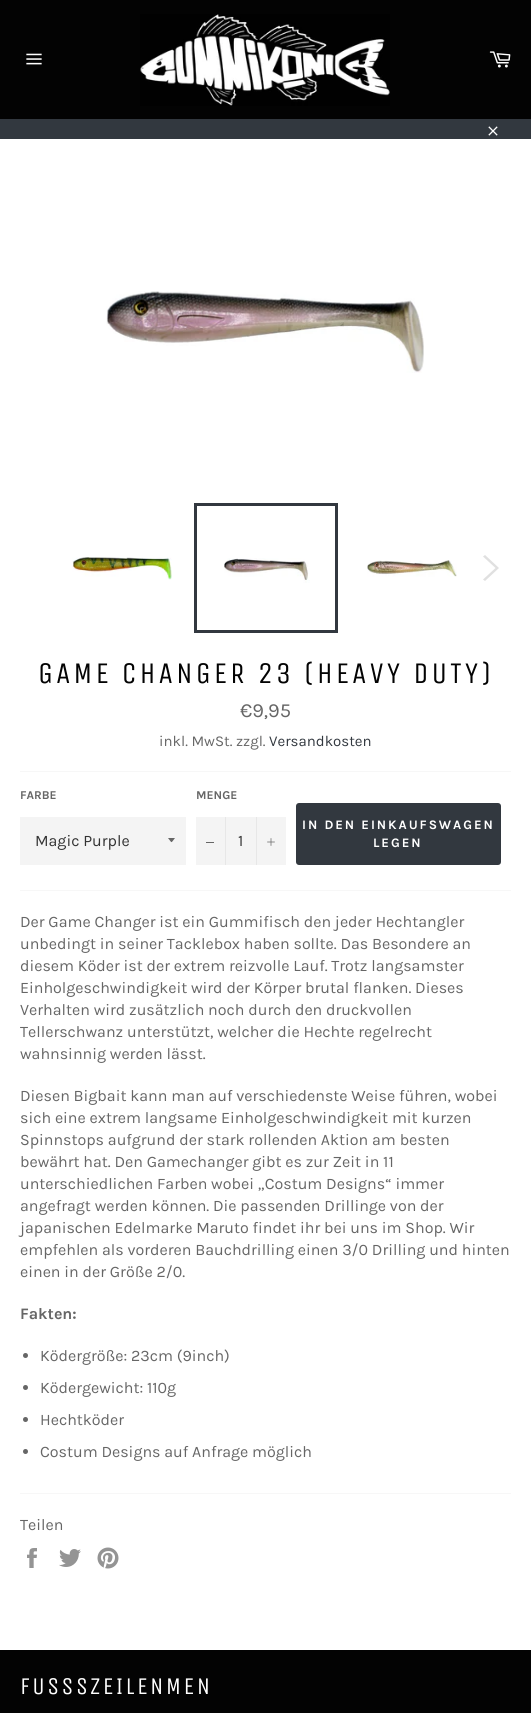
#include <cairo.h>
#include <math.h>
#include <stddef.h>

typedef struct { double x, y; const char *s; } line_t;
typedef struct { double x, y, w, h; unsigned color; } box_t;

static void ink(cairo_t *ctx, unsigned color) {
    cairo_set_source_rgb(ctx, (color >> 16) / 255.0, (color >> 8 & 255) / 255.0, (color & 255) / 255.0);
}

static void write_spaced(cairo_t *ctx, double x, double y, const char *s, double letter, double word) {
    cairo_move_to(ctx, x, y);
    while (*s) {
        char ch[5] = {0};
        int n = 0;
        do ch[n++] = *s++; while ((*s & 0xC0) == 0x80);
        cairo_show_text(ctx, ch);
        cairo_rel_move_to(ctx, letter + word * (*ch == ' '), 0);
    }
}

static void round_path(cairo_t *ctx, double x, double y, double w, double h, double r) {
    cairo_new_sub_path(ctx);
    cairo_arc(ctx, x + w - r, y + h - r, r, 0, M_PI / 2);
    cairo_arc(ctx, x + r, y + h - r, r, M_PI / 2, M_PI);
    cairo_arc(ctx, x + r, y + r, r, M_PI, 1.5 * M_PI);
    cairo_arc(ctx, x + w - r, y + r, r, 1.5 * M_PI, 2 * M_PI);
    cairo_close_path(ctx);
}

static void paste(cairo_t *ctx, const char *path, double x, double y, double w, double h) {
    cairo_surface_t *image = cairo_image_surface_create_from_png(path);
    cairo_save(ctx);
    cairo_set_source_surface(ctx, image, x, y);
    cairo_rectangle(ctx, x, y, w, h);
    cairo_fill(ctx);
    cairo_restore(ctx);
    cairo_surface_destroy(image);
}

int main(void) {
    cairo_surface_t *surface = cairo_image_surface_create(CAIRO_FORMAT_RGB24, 531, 1713);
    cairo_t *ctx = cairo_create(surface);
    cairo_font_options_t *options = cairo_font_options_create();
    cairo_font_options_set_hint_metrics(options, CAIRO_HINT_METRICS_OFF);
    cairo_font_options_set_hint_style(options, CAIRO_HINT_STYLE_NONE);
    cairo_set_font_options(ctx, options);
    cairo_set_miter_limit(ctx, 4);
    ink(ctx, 0x030303);
    cairo_paint(ctx);
    paste(ctx, "media/1.png", 26, 53, 16, 12);
    paste(ctx, "media/2.png", 140, 14, 250, 92);
    paste(ctx, "media/3.png", 489, 51, 22, 17);
    ink(ctx, 0x32383F);
    cairo_rectangle(ctx, 0, 119, 531, 20);
    cairo_fill(ctx);
    paste(ctx, "media/4.png", 488, 126, 10, 10);
    ink(ctx, 0xFFFFFF);
    cairo_rectangle(ctx, 0, 139, 531, 1511);
    cairo_fill(ctx);
    paste(ctx, "media/5.png", 106, 291, 318, 82);
    paste(ctx, "media/6.png", 72, 557, 100, 23);
    paste(ctx, "media/7.png", 224, 558, 86, 25);
    cairo_rectangle(ctx, 195.5, 504.5, 141, 127);
    ink(ctx, 0x32383F);
    cairo_set_line_width(ctx, 3);
    cairo_stroke(ctx);
    paste(ctx, "media/8.png", 367, 560, 90, 17);
    ink(ctx, 0xE0E0E0);
    cairo_new_path(ctx);
    cairo_move_to(ctx, 483, 556.5);
    cairo_line_to(ctx, 485, 555);
    cairo_line_to(ctx, 499, 568);
    cairo_line_to(ctx, 485, 581);
    cairo_line_to(ctx, 483, 579.5);
    cairo_line_to(ctx, 495.5, 568);
    cairo_close_path(ctx);
    cairo_fill(ctx);
    cairo_select_font_face(ctx, "Unica One", CAIRO_FONT_SLANT_NORMAL, CAIRO_FONT_WEIGHT_NORMAL);
    cairo_set_font_size(ctx, 30);
    ink(ctx, 0x030303);
    write_spaced(ctx, 38, 683, "GAME CHANGER 23 (HEAVY DUTY)", 3, 0);
    cairo_select_font_face(ctx, "Karla", CAIRO_FONT_SLANT_NORMAL, CAIRO_FONT_WEIGHT_NORMAL);
    cairo_set_font_size(ctx, 20);
    ink(ctx, 0x666666);
    cairo_move_to(ctx, 240, 717);
    cairo_show_text(ctx, "€9,95");
    cairo_set_font_size(ctx, 15);
    cairo_move_to(ctx, 159, 746);
    cairo_show_text(ctx, "inkl. MwSt. zzgl.");
    ink(ctx, 0x32383F);
    cairo_move_to(ctx, 269, 746);
    cairo_show_text(ctx, "Versandkosten");
    ink(ctx, 0xF7F7F7);
    cairo_rectangle(ctx, 20, 771, 491, 1);
    cairo_fill(ctx);
    cairo_select_font_face(ctx, "Karla", CAIRO_FONT_SLANT_NORMAL, CAIRO_FONT_WEIGHT_BOLD);
    cairo_set_font_size(ctx, 12);
    ink(ctx, 0x666666);
    cairo_move_to(ctx, 20, 799);
    cairo_show_text(ctx, "FARBE");
    ink(ctx, 0xF4F4F4);
    cairo_rectangle(ctx, 20, 817, 166, 48);
    cairo_fill(ctx);
    ink(ctx, 0x666666);
    cairo_new_path(ctx);
    cairo_move_to(ctx, 168, 838);
    cairo_curve_to(ctx, 172.5, 843.5, 170.5, 843.5, 175, 838);
    cairo_close_path(ctx);
    cairo_fill(ctx);
    cairo_select_font_face(ctx, "Karla", CAIRO_FONT_SLANT_NORMAL, CAIRO_FONT_WEIGHT_NORMAL);
    cairo_set_font_size(ctx, 16);
    ink(ctx, 0x333333);
    cairo_move_to(ctx, 35, 846);
    cairo_show_text(ctx, "Magic Purple");
    cairo_select_font_face(ctx, "Karla", CAIRO_FONT_SLANT_NORMAL, CAIRO_FONT_WEIGHT_BOLD);
    cairo_set_font_size(ctx, 12);
    ink(ctx, 0x666666);
    cairo_move_to(ctx, 196, 799);
    cairo_show_text(ctx, "MENGE");
    {
        static const box_t items[] = {
            {196, 817, 90, 48, 0xF4F4F4},
            {225, 817, 1, 48, 0xE7E7E7},
            {206, 842, 8, 1, 0x666666},
        };
        for (size_t i = 0; i < sizeof items / sizeof *items; i++) {
            ink(ctx, items[i].color);
            cairo_rectangle(ctx, items[i].x, items[i].y, items[i].w, items[i].h);
            cairo_fill(ctx);
        }
    }
    cairo_select_font_face(ctx, "Karla", CAIRO_FONT_SLANT_NORMAL, CAIRO_FONT_WEIGHT_NORMAL);
    cairo_set_font_size(ctx, 16);
    ink(ctx, 0x333333);
    cairo_move_to(ctx, 238, 846);
    cairo_show_text(ctx, "1");
    ink(ctx, 0xE7E7E7);
    cairo_rectangle(ctx, 256, 817, 1, 48);
    cairo_fill(ctx);
    paste(ctx, "media/9.png", 267, 838, 8, 8);
    ink(ctx, 0x32383F);
    round_path(ctx, 296, 803, 205, 62, 3);
    cairo_fill(ctx);
    cairo_select_font_face(ctx, "Karla", CAIRO_FONT_SLANT_NORMAL, CAIRO_FONT_WEIGHT_BOLD);
    cairo_set_font_size(ctx, 13);
    ink(ctx, 0xFFFFFF);
    write_spaced(ctx, 302, 829, "IN DEN EINKAUFSWAGEN", 1.95, 0);
    write_spaced(ctx, 373, 847, "LEGEN", 1.95, 0);
    ink(ctx, 0xF7F7F7);
    cairo_rectangle(ctx, 20, 890, 491, 1);
    cairo_fill(ctx);
    cairo_select_font_face(ctx, "Karla", CAIRO_FONT_SLANT_NORMAL, CAIRO_FONT_WEIGHT_NORMAL);
    cairo_set_font_size(ctx, 16);
    ink(ctx, 0x666666);
    {
        static const line_t items[] = {
            {20, 927, "Der Game Changer ist ein Gummifisch den jeder Hechtangler"},
            {20, 949, "unbedingt in seiner Tacklebox haben sollte. Das Besondere an"},
            {20, 971, "diesem Köder ist der extrem reizvolle Lauf. Trotz langsamster"},
            {20, 993, "Einholgeschwindigkeit wird der Körper brutal flanken. Dieses"},
            {20, 1015, "Verhalten wird zusätzlich noch durch den druckvollen"},
            {20, 1037, "Tellerschwanz unterstützt, welcher die Hechte regelrecht"},
            {20, 1059, "wahnsinnig werden lässt."},
            {20, 1101, "Diesen Bigbait kann man auf verschiedenste Weise führen, wobei"},
            {20, 1123, "sich eine extrem langsame Einholgeschwindigkeit mit kurzen"},
            {20, 1145, "Spinnstops aufgrund der stark rollenden Aktion am besten"},
            {20, 1167, "bewährt hat. Den Gamechanger gibt es zur Zeit in 11"},
            {20, 1189, "unterschiedlichen Farben wobei „Costum Designs“ immer"},
            {20, 1211, "angefragt werden können. Die passenden Drillinge von der"},
            {20, 1233, "japanischen Edelmarke Maruto findet ihr bei uns im Shop. Wir"},
            {20, 1255, "empfehlen als vorderen Bauchdrilling einen 3/0 Drilling und hinten"},
            {20, 1277, "einen in der Größe 2/0."},
        };
        for (size_t i = 0; i < sizeof items / sizeof *items; i++) {
            cairo_move_to(ctx, items[i].x, items[i].y);
            cairo_show_text(ctx, items[i].s);
        }
    }
    cairo_select_font_face(ctx, "Karla", CAIRO_FONT_SLANT_NORMAL, CAIRO_FONT_WEIGHT_BOLD);
    cairo_move_to(ctx, 20, 1319);
    cairo_show_text(ctx, "Fakten:");
    cairo_new_path(ctx);
    cairo_arc(ctx, 25.5, 1355.5, 2.5, 0, 2 * M_PI);
    cairo_fill(ctx);
    cairo_select_font_face(ctx, "Karla", CAIRO_FONT_SLANT_NORMAL, CAIRO_FONT_WEIGHT_NORMAL);
    cairo_move_to(ctx, 40, 1361);
    cairo_show_text(ctx, "Ködergröße: 23cm (9inch)");
    cairo_new_path(ctx);
    cairo_arc(ctx, 25.5, 1387.5, 2.5, 0, 2 * M_PI);
    cairo_fill(ctx);
    cairo_move_to(ctx, 40, 1393);
    cairo_show_text(ctx, "Ködergewicht: 110g");
    cairo_new_path(ctx);
    cairo_arc(ctx, 25.5, 1419.5, 2.5, 0, 2 * M_PI);
    cairo_fill(ctx);
    cairo_move_to(ctx, 40, 1425);
    cairo_show_text(ctx, "Hechtköder");
    cairo_new_path(ctx);
    cairo_arc(ctx, 25.5, 1451.5, 2.5, 0, 2 * M_PI);
    cairo_fill(ctx);
    cairo_move_to(ctx, 40, 1457);
    cairo_show_text(ctx, "Costum Designs auf Anfrage möglich");
    ink(ctx, 0xF7F7F7);
    cairo_rectangle(ctx, 20, 1493, 491, 1);
    cairo_fill(ctx);
    ink(ctx, 0x666666);
    cairo_move_to(ctx, 20, 1530);
    cairo_show_text(ctx, "Teilen");
    paste(ctx, "media/10.png", 27, 1548, 10, 20);
    paste(ctx, "media/11.png", 59, 1549, 22, 18);
    paste(ctx, "media/12.png", 97, 1547, 22, 22);
    cairo_select_font_face(ctx, "Unica One", CAIRO_FONT_SLANT_NORMAL, CAIRO_FONT_WEIGHT_NORMAL);
    cairo_set_font_size(ctx, 24);
    ink(ctx, 0xFFFFFF);
    write_spaced(ctx, 20, 1694, "FUSSSZEILENMEN", 2.4, 0);
    cairo_surface_write_to_png(surface, "image.png");
    cairo_font_options_destroy(options);
    cairo_destroy(ctx);
    cairo_surface_destroy(surface);
    return 0;
}
